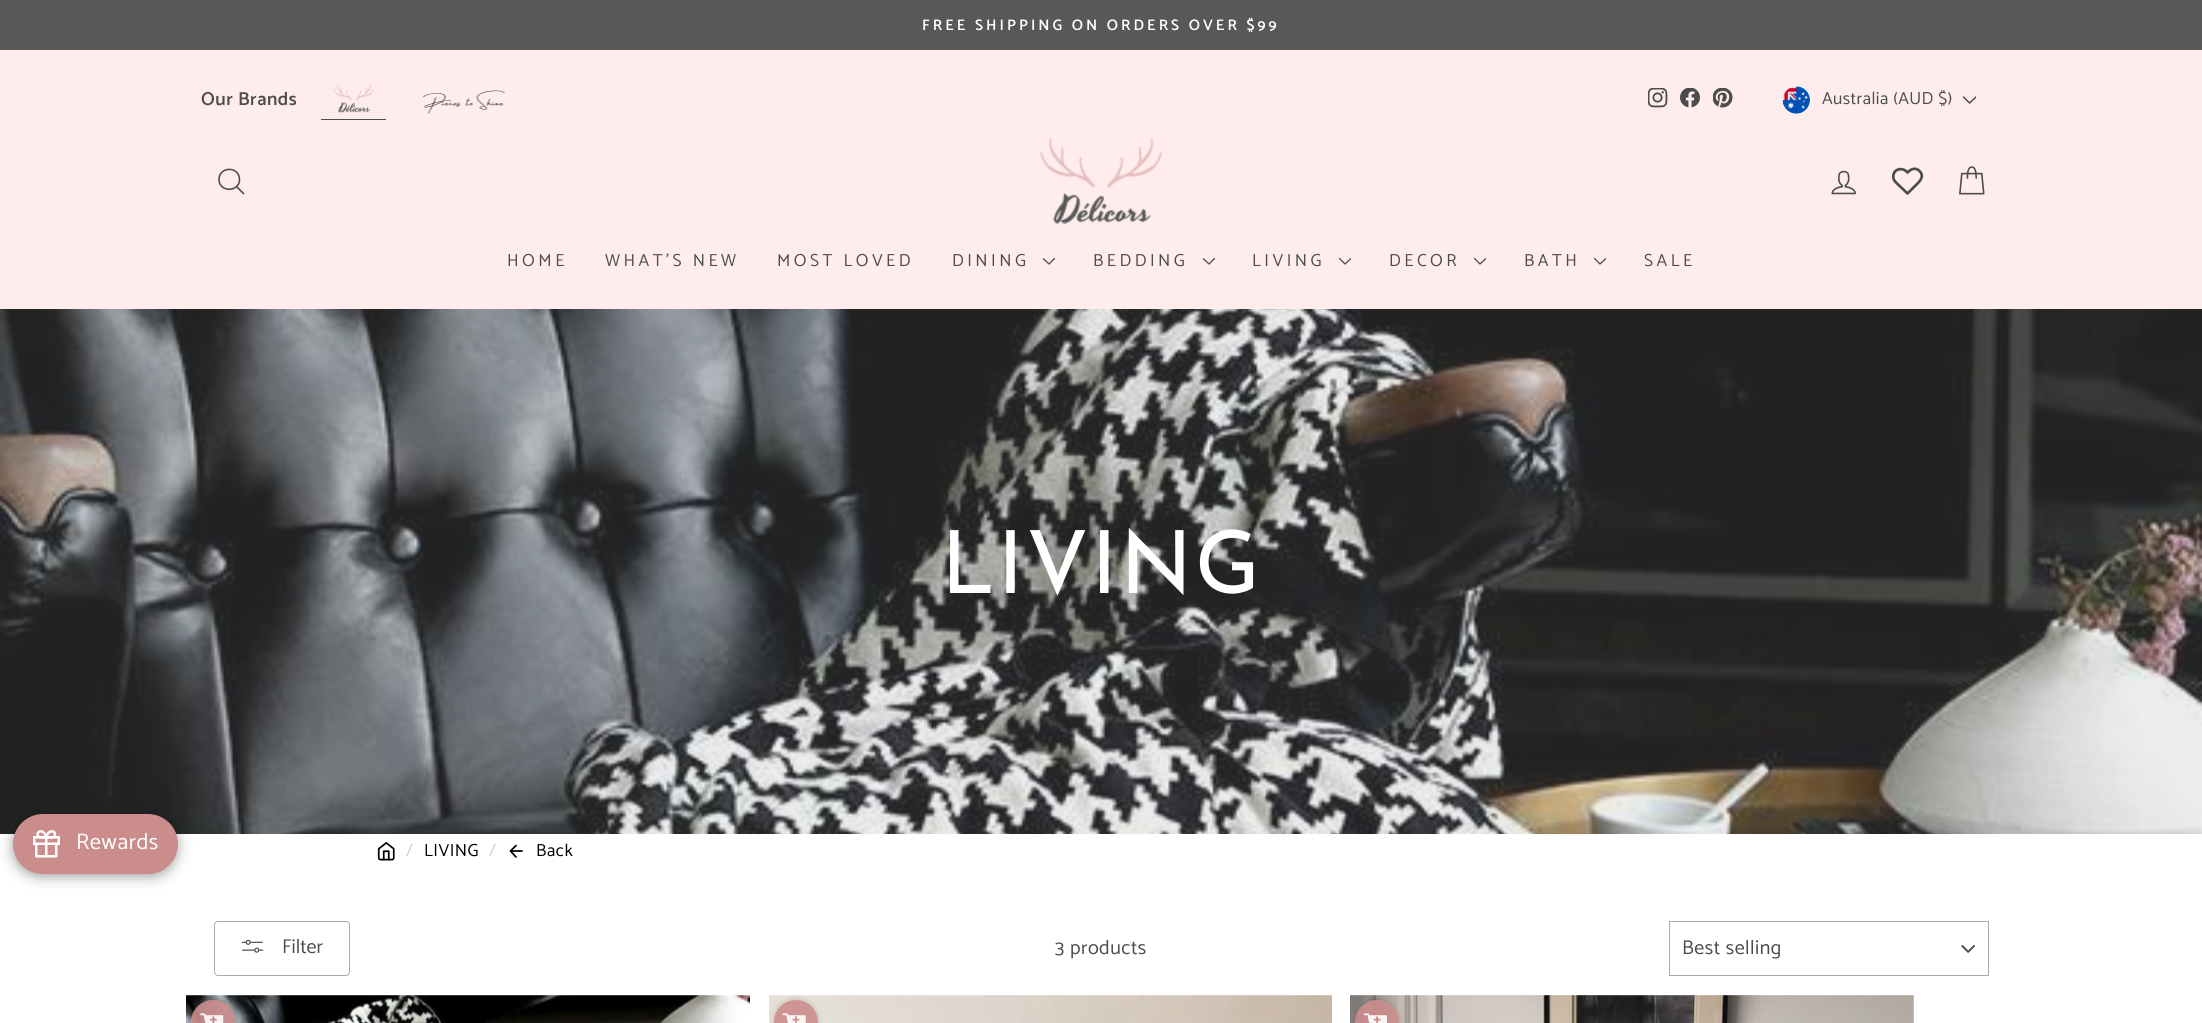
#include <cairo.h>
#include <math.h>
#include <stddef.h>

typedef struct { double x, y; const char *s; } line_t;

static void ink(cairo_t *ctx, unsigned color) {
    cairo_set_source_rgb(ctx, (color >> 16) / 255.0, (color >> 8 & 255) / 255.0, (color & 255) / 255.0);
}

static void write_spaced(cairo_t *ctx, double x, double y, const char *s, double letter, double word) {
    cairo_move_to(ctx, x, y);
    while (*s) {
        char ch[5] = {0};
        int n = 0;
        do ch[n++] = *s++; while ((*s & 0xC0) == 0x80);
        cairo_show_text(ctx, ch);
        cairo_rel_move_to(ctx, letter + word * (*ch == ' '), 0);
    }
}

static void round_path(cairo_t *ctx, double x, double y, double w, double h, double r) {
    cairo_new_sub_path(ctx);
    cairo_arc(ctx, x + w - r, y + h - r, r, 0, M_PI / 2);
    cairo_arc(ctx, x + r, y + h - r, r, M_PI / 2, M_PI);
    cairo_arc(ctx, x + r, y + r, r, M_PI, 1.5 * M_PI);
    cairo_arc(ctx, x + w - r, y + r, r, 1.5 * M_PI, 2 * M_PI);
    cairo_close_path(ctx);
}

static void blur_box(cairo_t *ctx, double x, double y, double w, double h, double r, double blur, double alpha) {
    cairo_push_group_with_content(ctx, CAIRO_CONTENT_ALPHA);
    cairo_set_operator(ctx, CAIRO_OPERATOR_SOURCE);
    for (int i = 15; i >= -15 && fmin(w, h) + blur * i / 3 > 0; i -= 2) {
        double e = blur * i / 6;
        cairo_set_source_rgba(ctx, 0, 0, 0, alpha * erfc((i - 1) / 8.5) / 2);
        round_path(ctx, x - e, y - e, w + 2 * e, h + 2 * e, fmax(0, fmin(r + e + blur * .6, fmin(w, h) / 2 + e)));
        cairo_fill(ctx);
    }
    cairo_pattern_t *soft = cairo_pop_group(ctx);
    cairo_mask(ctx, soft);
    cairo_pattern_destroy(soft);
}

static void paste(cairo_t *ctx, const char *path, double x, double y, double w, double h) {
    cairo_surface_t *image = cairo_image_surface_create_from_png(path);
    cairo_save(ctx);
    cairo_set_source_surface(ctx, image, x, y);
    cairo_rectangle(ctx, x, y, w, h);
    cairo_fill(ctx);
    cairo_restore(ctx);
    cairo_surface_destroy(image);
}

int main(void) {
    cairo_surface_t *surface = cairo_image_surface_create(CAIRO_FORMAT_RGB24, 2202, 1023);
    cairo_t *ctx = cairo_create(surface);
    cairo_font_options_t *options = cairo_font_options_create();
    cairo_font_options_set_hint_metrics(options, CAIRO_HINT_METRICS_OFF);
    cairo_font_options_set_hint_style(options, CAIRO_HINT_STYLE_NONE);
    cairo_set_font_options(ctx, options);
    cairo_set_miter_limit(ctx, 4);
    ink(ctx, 0xFFFFFF);
    cairo_paint(ctx);
    paste(ctx, "media/11.png", 0, 309, 2202, 525);
    ink(ctx, 0x000000);
    blur_box(ctx, 15, 819, 160, 55, 27.5, 7.5, 0.5);
    ink(ctx, 0xCB8C8C);
    round_path(ctx, 13, 814, 165, 60, 30);
    cairo_fill(ctx);
    paste(ctx, "media/1.png", 33, 830, 27, 28);
    cairo_select_font_face(ctx, "Catamaran", CAIRO_FONT_SLANT_NORMAL, CAIRO_FONT_WEIGHT_NORMAL);
    cairo_set_font_size(ctx, 22.5);
    ink(ctx, 0xFFFFFF);
    write_spaced(ctx, 76, 849, "Rewards", 0.5, 0);
    ink(ctx, 0x585858);
    cairo_rectangle(ctx, 0, 0, 2202, 50);
    cairo_fill(ctx);
    cairo_select_font_face(ctx, "Catamaran SemiBold", CAIRO_FONT_SLANT_NORMAL, CAIRO_FONT_WEIGHT_NORMAL);
    cairo_set_font_size(ctx, 15.3);
    ink(ctx, 0xFFFFFF);
    write_spaced(ctx, 922, 30, "FREE SHIPPING ON ORDERS OVER $99", 3.05, 0);
    ink(ctx, 0xFFEDED);
    cairo_rectangle(ctx, 0, 50, 2202, 259);
    cairo_fill(ctx);
    cairo_set_font_size(ctx, 18.75);
    ink(ctx, 0x4C4C4C);
    write_spaced(ctx, 201, 105, "Our Brands", 0.5, 0);
    cairo_rectangle(ctx, 321, 119, 65, 1);
    cairo_fill(ctx);
    paste(ctx, "media/2.png", 333, 83, 41, 30);
    paste(ctx, "media/3.png", 422, 90, 83, 24);
    paste(ctx, "media/4.png", 1648, 88, 20, 20);
    paste(ctx, "media/5.png", 1680, 88, 20, 20);
    paste(ctx, "media/6.png", 1713, 88, 20, 20);
    paste(ctx, "media/7.png", 1782, 86, 28, 28);
    cairo_select_font_face(ctx, "Catamaran", CAIRO_FONT_SLANT_NORMAL, CAIRO_FONT_WEIGHT_NORMAL);
    cairo_set_font_size(ctx, 17.5);
    write_spaced(ctx, 1822, 104, "Australia (AUD $)", 0.4, 0);
    cairo_save(ctx);
    cairo_rectangle(ctx, 1963, 94, 13, 14);
    cairo_clip(ctx);
    cairo_new_path(ctx);
    cairo_move_to(ctx, 1963.5, 97);
    cairo_line_to(ctx, 1969.5, 103);
    cairo_line_to(ctx, 1976, 97);
    cairo_set_line_width(ctx, 1.5);
    cairo_set_line_cap(ctx, CAIRO_LINE_CAP_ROUND);
    cairo_set_line_join(ctx, CAIRO_LINE_JOIN_ROUND);
    cairo_stroke(ctx);
    cairo_restore(ctx);
    cairo_new_path(ctx);
    cairo_move_to(ctx, 239.5, 179.5);
    cairo_curve_to(ctx, 239.5, 192.5, 219, 192.5, 219, 179.5);
    cairo_curve_to(ctx, 219, 166, 239.5, 166, 239.5, 179.5);
    cairo_close_path(ctx);
    cairo_move_to(ctx, 243.5, 193.5);
    cairo_line_to(ctx, 236.5, 186.5);
    cairo_set_line_width(ctx, 1.6);
    cairo_set_line_cap(ctx, CAIRO_LINE_CAP_ROUND);
    cairo_set_line_join(ctx, CAIRO_LINE_JOIN_ROUND);
    cairo_stroke(ctx);
    paste(ctx, "media/8.png", 1040, 137, 123, 87);
    paste(ctx, "media/9.png", 1831, 170, 25, 25);
    cairo_new_path(ctx);
    cairo_move_to(ctx, 1919.5, 171);
    cairo_curve_to(ctx, 1915.5, 167, 1911, 169, 1907.5, 172.5);
    cairo_line_to(ctx, 1906, 171);
    cairo_curve_to(ctx, 1903, 168.5, 1898.5, 168.5, 1895.5, 171);
    cairo_curve_to(ctx, 1892.5, 174, 1892.5, 179, 1895.5, 182);
    cairo_line_to(ctx, 1907.5, 193.5);
    cairo_line_to(ctx, 1914.5, 186.5);
    cairo_curve_to(ctx, 1918.5, 182.5, 1925.5, 177, 1919.5, 171);
    cairo_close_path(ctx);
    cairo_set_line_width(ctx, 2.7);
    cairo_stroke(ctx);
    paste(ctx, "media/10.png", 1959, 166, 26, 29);
    {
        static const line_t items[] = {
            {507, 266, "HOME"},
            {605, 266, "WHAT'S NEW"},
            {777, 266, "MOST LOVED"},
            {952, 266, "DINING"},
        };
        for (size_t i = 0; i < sizeof items / sizeof *items; i++) {
            write_spaced(ctx, items[i].x, items[i].y, items[i].s, 3.5, 0);
        }
    }
    cairo_save(ctx);
    cairo_rectangle(ctx, 1043, 255, 12, 13);
    cairo_clip(ctx);
    cairo_new_path(ctx);
    cairo_move_to(ctx, 1043, 258.5);
    cairo_line_to(ctx, 1049, 264);
    cairo_line_to(ctx, 1054.5, 258.5);
    cairo_set_line_width(ctx, 1.3);
    cairo_stroke(ctx);
    cairo_restore(ctx);
    write_spaced(ctx, 1093, 266, "BEDDING", 3.5, 0);
    cairo_save(ctx);
    cairo_rectangle(ctx, 1203, 255, 12, 13);
    cairo_clip(ctx);
    cairo_new_path(ctx);
    cairo_move_to(ctx, 1203, 258.5);
    cairo_line_to(ctx, 1209, 264);
    cairo_line_to(ctx, 1214.5, 258.5);
    cairo_set_line_width(ctx, 1.3);
    cairo_stroke(ctx);
    cairo_restore(ctx);
    write_spaced(ctx, 1252, 266, "LIVING", 3.5, 0);
    cairo_save(ctx);
    cairo_rectangle(ctx, 1339, 255, 12, 13);
    cairo_clip(ctx);
    cairo_new_path(ctx);
    cairo_move_to(ctx, 1339.5, 258.5);
    cairo_line_to(ctx, 1345, 264);
    cairo_line_to(ctx, 1351, 258.5);
    cairo_set_line_width(ctx, 1.3);
    cairo_stroke(ctx);
    cairo_restore(ctx);
    write_spaced(ctx, 1389, 266, "DECOR", 3.5, 0);
    cairo_save(ctx);
    cairo_rectangle(ctx, 1474, 255, 12, 13);
    cairo_clip(ctx);
    cairo_new_path(ctx);
    cairo_move_to(ctx, 1474.5, 258.5);
    cairo_line_to(ctx, 1480, 264);
    cairo_line_to(ctx, 1486, 258.5);
    cairo_set_line_width(ctx, 1.3);
    cairo_stroke(ctx);
    cairo_restore(ctx);
    write_spaced(ctx, 1524, 266, "BATH", 3.5, 0);
    cairo_save(ctx);
    cairo_rectangle(ctx, 1594, 255, 12, 13);
    cairo_clip(ctx);
    cairo_new_path(ctx);
    cairo_move_to(ctx, 1594.5, 258.5);
    cairo_line_to(ctx, 1600, 264);
    cairo_line_to(ctx, 1606, 258.5);
    cairo_set_line_width(ctx, 1.3);
    cairo_stroke(ctx);
    cairo_restore(ctx);
    write_spaced(ctx, 1644, 266, "SALE", 3.5, 0);
    cairo_select_font_face(ctx, "Josefin Sans", CAIRO_FONT_SLANT_NORMAL, CAIRO_FONT_WEIGHT_NORMAL);
    cairo_set_font_size(ctx, 87);
    ink(ctx, 0xFFFFFF);
    write_spaced(ctx, 941, 593, "LIVING", 2.25, 0);
    paste(ctx, "media/12.png", 377, 842, 18, 19);
    cairo_select_font_face(ctx, "Catamaran", CAIRO_FONT_SLANT_NORMAL, CAIRO_FONT_WEIGHT_NORMAL);
    cairo_set_font_size(ctx, 17.5);
    ink(ctx, 0xCCCCCC);
    write_spaced(ctx, 406, 856, "/", 0.5, 0);
    ink(ctx, 0x000000);
    write_spaced(ctx, 424, 856, "LIVING", 0.5, 0);
    ink(ctx, 0xCCCCCC);
    write_spaced(ctx, 489, 856, "/", 0.5, 0);
    cairo_new_path(ctx);
    cairo_move_to(ctx, 516, 857);
    cairo_line_to(ctx, 510.5, 851);
    cairo_line_to(ctx, 516, 845.5);
    cairo_move_to(ctx, 522, 851);
    cairo_line_to(ctx, 510.5, 851);
    ink(ctx, 0x000000);
    cairo_set_line_width(ctx, 1.7);
    cairo_stroke(ctx);
    write_spaced(ctx, 536, 856, "Back", 0.5, 0);
    round_path(ctx, 214.5, 921.5, 135, 54, 3.5);
    ink(ctx, 0xA8AAAC);
    cairo_set_line_width(ctx, 1);
    cairo_set_line_cap(ctx, CAIRO_LINE_CAP_BUTT);
    cairo_set_line_join(ctx, CAIRO_LINE_JOIN_MITER);
    cairo_stroke(ctx);
    paste(ctx, "media/13.png", 241, 939, 23, 14);
    cairo_set_font_size(ctx, 20);
    ink(ctx, 0x4C4C4C);
    cairo_move_to(ctx, 282, 953);
    cairo_show_text(ctx, "Filter");
    write_spaced(ctx, 1055, 954, "3 products", 0.5, 0);
    paste(ctx, "media/14.png", 1961, 945, 14, 8);
    cairo_rectangle(ctx, 1669.5, 921.5, 319, 54);
    ink(ctx, 0xA8AAAC);
    cairo_stroke(ctx);
    ink(ctx, 0x4C4C4C);
    write_spaced(ctx, 1682, 954, "Best selling", 0.5, 0);
    paste(ctx, "media/16.png", 186, 995, 564, 28);
    cairo_save(ctx);
    cairo_set_fill_rule(ctx, CAIRO_FILL_RULE_EVEN_ODD);
    cairo_new_path(ctx);
    cairo_move_to(ctx, 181, 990);
    cairo_line_to(ctx, 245, 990);
    cairo_line_to(ctx, 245, 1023);
    cairo_line_to(ctx, 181, 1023);
    cairo_close_path(ctx);
    cairo_move_to(ctx, 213, 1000);
    cairo_curve_to(ctx, 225, 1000, 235, 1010, 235, 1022);
    cairo_curve_to(ctx, 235, 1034, 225, 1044, 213, 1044);
    cairo_curve_to(ctx, 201, 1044, 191, 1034, 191, 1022);
    cairo_curve_to(ctx, 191, 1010, 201, 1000, 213, 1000);
    cairo_close_path(ctx);
    cairo_clip(ctx);
    ink(ctx, 0x000000);
    blur_box(ctx, 191, 1000, 44, 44, 22, 3, 0.18);
    cairo_restore(ctx);
    cairo_set_source_rgba(ctx, 0.796, 0.549, 0.549, 0.9);
    cairo_arc(ctx, 213, 1022, 22, 0, 2 * M_PI);
    cairo_fill(ctx);
    paste(ctx, "media/15.png", 200, 1013, 24, 10);
    paste(ctx, "media/18.png", 769, 995, 563, 28);
    cairo_save(ctx);
    cairo_set_fill_rule(ctx, CAIRO_FILL_RULE_EVEN_ODD);
    cairo_new_path(ctx);
    cairo_move_to(ctx, 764, 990);
    cairo_line_to(ctx, 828, 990);
    cairo_line_to(ctx, 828, 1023);
    cairo_line_to(ctx, 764, 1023);
    cairo_close_path(ctx);
    cairo_move_to(ctx, 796, 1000);
    cairo_curve_to(ctx, 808, 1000, 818, 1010, 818, 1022);
    cairo_curve_to(ctx, 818, 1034, 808, 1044, 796, 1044);
    cairo_curve_to(ctx, 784, 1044, 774, 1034, 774, 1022);
    cairo_curve_to(ctx, 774, 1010, 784, 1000, 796, 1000);
    cairo_close_path(ctx);
    cairo_clip(ctx);
    ink(ctx, 0x000000);
    blur_box(ctx, 774, 1000, 44, 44, 22, 3, 0.18);
    cairo_restore(ctx);
    cairo_arc(ctx, 796, 1022, 22, 0, 2 * M_PI);
    cairo_fill(ctx);
    paste(ctx, "media/17.png", 782, 1013, 24, 10);
    paste(ctx, "media/20.png", 1350, 995, 564, 28);
    cairo_save(ctx);
    cairo_set_fill_rule(ctx, CAIRO_FILL_RULE_EVEN_ODD);
    cairo_new_path(ctx);
    cairo_move_to(ctx, 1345, 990);
    cairo_line_to(ctx, 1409, 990);
    cairo_line_to(ctx, 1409, 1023);
    cairo_line_to(ctx, 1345, 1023);
    cairo_close_path(ctx);
    cairo_move_to(ctx, 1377, 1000);
    cairo_curve_to(ctx, 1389, 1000, 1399, 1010, 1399, 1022);
    cairo_curve_to(ctx, 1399, 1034, 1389, 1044, 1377, 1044);
    cairo_curve_to(ctx, 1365, 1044, 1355, 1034, 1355, 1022);
    cairo_curve_to(ctx, 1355, 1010, 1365, 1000, 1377, 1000);
    cairo_close_path(ctx);
    cairo_clip(ctx);
    ink(ctx, 0x000000);
    blur_box(ctx, 1355, 1000, 44, 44, 22, 3, 0.18);
    cairo_restore(ctx);
    cairo_arc(ctx, 1377, 1022, 22, 0, 2 * M_PI);
    cairo_fill(ctx);
    paste(ctx, "media/19.png", 1363, 1013, 24, 10);
    cairo_surface_write_to_png(surface, "image.png");
    cairo_font_options_destroy(options);
    cairo_destroy(ctx);
    cairo_surface_destroy(surface);
    return 0;
}
